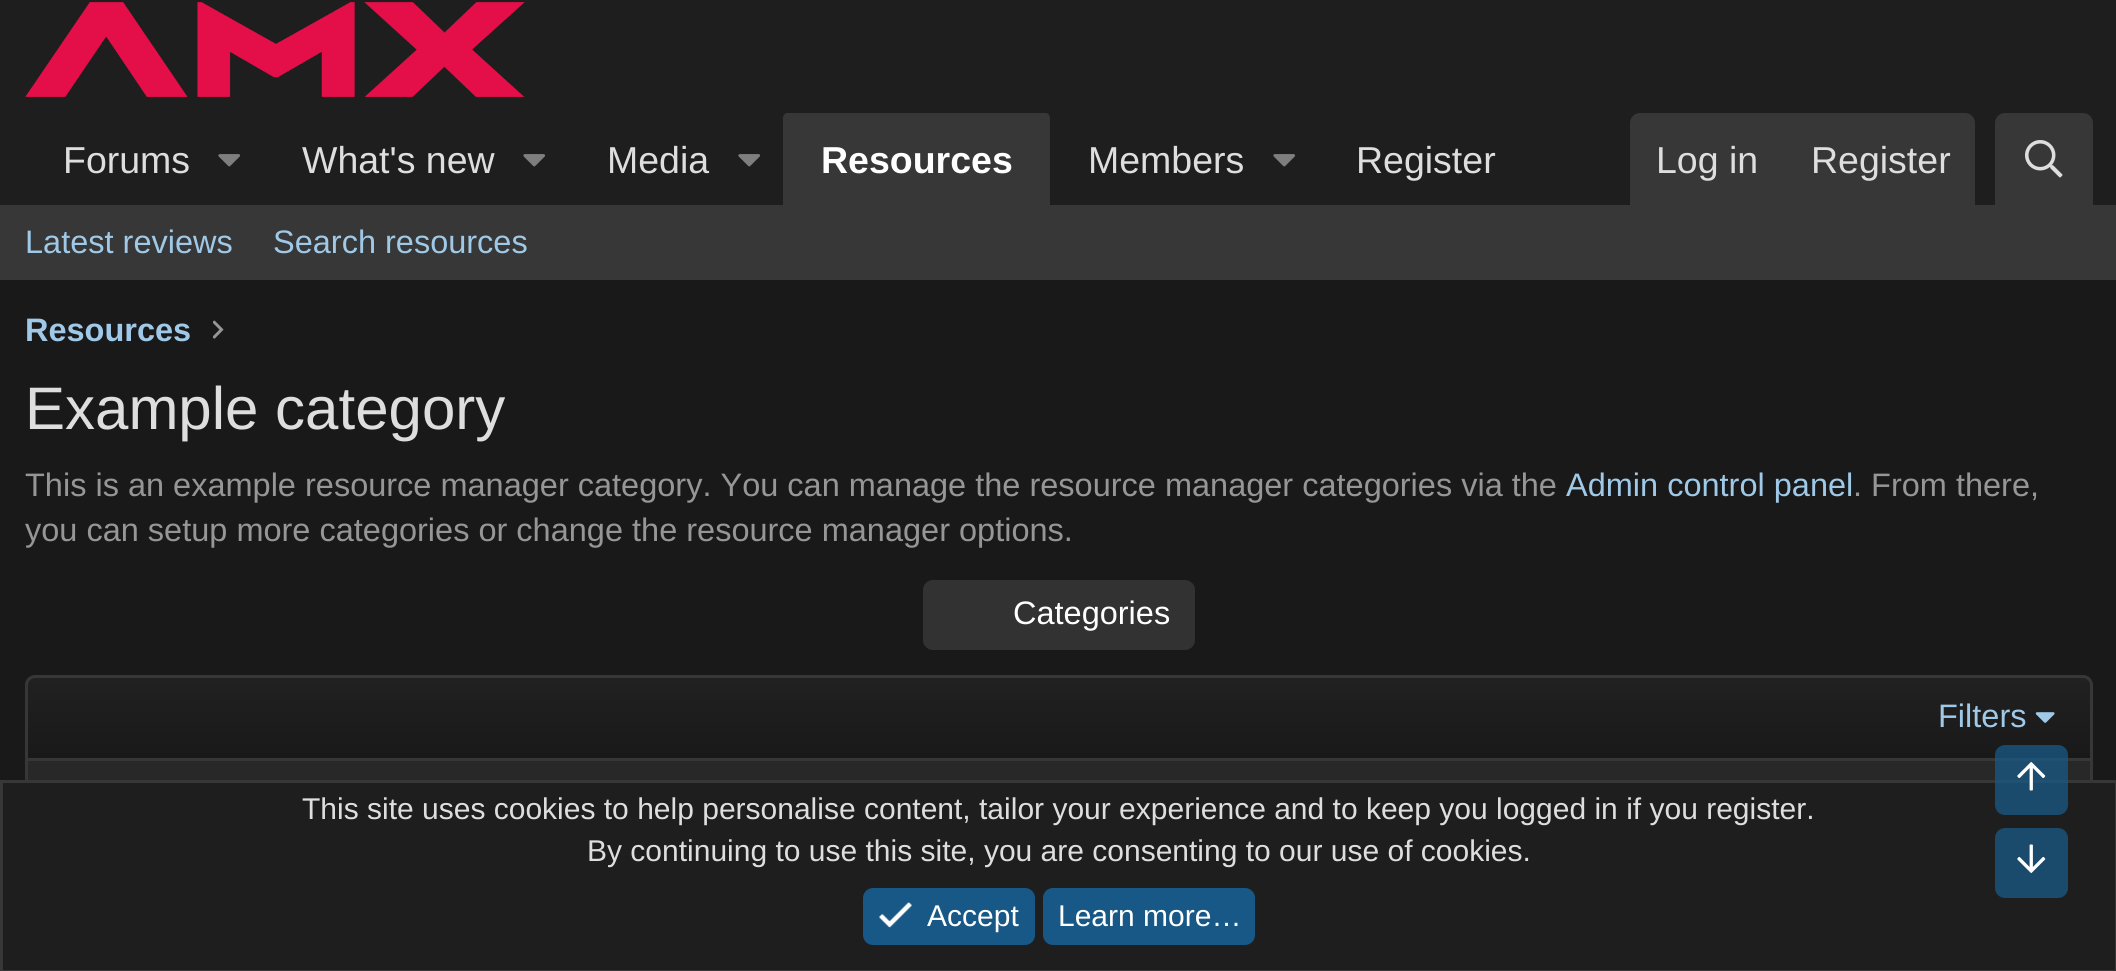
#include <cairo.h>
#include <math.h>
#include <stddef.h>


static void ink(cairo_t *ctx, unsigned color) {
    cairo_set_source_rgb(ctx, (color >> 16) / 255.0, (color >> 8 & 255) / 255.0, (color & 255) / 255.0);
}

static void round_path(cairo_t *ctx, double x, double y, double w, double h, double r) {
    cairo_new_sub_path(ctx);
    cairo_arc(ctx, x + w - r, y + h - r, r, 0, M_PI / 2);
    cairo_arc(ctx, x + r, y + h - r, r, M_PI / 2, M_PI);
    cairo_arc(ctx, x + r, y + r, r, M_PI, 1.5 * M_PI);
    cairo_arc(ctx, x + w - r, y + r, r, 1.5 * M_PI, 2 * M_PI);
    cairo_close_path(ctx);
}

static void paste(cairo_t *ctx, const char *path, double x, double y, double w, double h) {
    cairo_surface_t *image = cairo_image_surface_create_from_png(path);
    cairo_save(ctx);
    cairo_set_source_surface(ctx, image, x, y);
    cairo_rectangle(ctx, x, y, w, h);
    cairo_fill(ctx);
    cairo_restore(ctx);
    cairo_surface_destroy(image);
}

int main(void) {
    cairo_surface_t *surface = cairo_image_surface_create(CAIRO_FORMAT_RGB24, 2116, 971);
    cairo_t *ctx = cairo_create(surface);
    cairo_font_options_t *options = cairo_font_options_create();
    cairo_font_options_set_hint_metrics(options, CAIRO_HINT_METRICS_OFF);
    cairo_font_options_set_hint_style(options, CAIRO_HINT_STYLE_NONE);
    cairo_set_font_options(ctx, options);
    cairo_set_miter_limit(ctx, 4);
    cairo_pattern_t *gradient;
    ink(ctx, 0x191919);
    cairo_paint(ctx);
    ink(ctx, 0x1E1E1E);
    cairo_rectangle(ctx, 0, 0, 2116, 205);
    cairo_fill(ctx);
    paste(ctx, "media/1.png", 25, 2, 500, 95);
    cairo_select_font_face(ctx, "Liberation Sans", CAIRO_FONT_SLANT_NORMAL, CAIRO_FONT_WEIGHT_NORMAL);
    cairo_set_font_size(ctx, 37.5);
    ink(ctx, 0xDEDEDE);
    cairo_move_to(ctx, 63, 173);
    cairo_show_text(ctx, "Forums");
    paste(ctx, "media/2.png", 218, 154, 22, 13);
    cairo_move_to(ctx, 302, 173);
    cairo_show_text(ctx, "What's new");
    paste(ctx, "media/2.png", 523, 154, 22, 13);
    cairo_move_to(ctx, 607, 173);
    cairo_show_text(ctx, "Media");
    paste(ctx, "media/2.png", 738, 154, 22, 13);
    ink(ctx, 0x373737);
    cairo_new_path(ctx);
    cairo_move_to(ctx, 788, 113);
    cairo_line_to(ctx, 1045, 113);
    cairo_curve_to(ctx, 1048, 113, 1050, 115, 1050, 118);
    cairo_line_to(ctx, 1050, 205);
    cairo_line_to(ctx, 783, 205);
    cairo_line_to(ctx, 783, 118);
    cairo_curve_to(ctx, 783, 115, 785, 113, 788, 113);
    cairo_close_path(ctx);
    cairo_fill(ctx);
    cairo_select_font_face(ctx, "Liberation Sans", CAIRO_FONT_SLANT_NORMAL, CAIRO_FONT_WEIGHT_BOLD);
    ink(ctx, 0xFFFFFF);
    cairo_move_to(ctx, 821, 173);
    cairo_show_text(ctx, "Resources");
    cairo_select_font_face(ctx, "Liberation Sans", CAIRO_FONT_SLANT_NORMAL, CAIRO_FONT_WEIGHT_NORMAL);
    ink(ctx, 0xDEDEDE);
    cairo_move_to(ctx, 1088, 173);
    cairo_show_text(ctx, "Members");
    paste(ctx, "media/2.png", 1273, 154, 22, 13);
    cairo_move_to(ctx, 1356, 173);
    cairo_show_text(ctx, "Register");
    ink(ctx, 0x373737);
    cairo_new_path(ctx);
    cairo_move_to(ctx, 1640, 113);
    cairo_line_to(ctx, 1965, 113);
    cairo_curve_to(ctx, 1970.5, 113, 1975, 117.5, 1975, 123);
    cairo_line_to(ctx, 1975, 205);
    cairo_line_to(ctx, 1630, 205);
    cairo_line_to(ctx, 1630, 123);
    cairo_curve_to(ctx, 1630, 117.5, 1634.5, 113, 1640, 113);
    cairo_close_path(ctx);
    cairo_fill(ctx);
    ink(ctx, 0xDEDEDE);
    cairo_move_to(ctx, 1656, 173);
    cairo_show_text(ctx, "Log in");
    cairo_move_to(ctx, 1811, 173);
    cairo_show_text(ctx, "Register");
    ink(ctx, 0x373737);
    cairo_new_path(ctx);
    cairo_move_to(ctx, 2005, 113);
    cairo_line_to(ctx, 2083, 113);
    cairo_curve_to(ctx, 2088.5, 113, 2093, 117.5, 2093, 123);
    cairo_line_to(ctx, 2093, 205);
    cairo_line_to(ctx, 1995, 205);
    cairo_line_to(ctx, 1995, 123);
    cairo_curve_to(ctx, 1995, 117.5, 1999.5, 113, 2005, 113);
    cairo_close_path(ctx);
    cairo_fill(ctx);
    paste(ctx, "media/3.png", 2025, 140, 38, 38);
    cairo_rectangle(ctx, 0, 205, 2116, 75);
    cairo_fill(ctx);
    cairo_set_font_size(ctx, 32.5);
    ink(ctx, 0x9FC9E7);
    cairo_move_to(ctx, 25, 253);
    cairo_show_text(ctx, "Latest reviews");
    cairo_move_to(ctx, 273, 253);
    cairo_show_text(ctx, "Search resources");
    cairo_select_font_face(ctx, "Liberation Sans", CAIRO_FONT_SLANT_NORMAL, CAIRO_FONT_WEIGHT_BOLD);
    cairo_move_to(ctx, 25, 341);
    cairo_show_text(ctx, "Resources");
    paste(ctx, "media/4.png", 213, 320, 11, 19);
    cairo_select_font_face(ctx, "Liberation Sans", CAIRO_FONT_SLANT_NORMAL, CAIRO_FONT_WEIGHT_NORMAL);
    cairo_set_font_size(ctx, 60);
    ink(ctx, 0xDEDEDE);
    cairo_move_to(ctx, 25, 429);
    cairo_show_text(ctx, "Example category");
    cairo_set_font_size(ctx, 32.5);
    ink(ctx, 0x969696);
    cairo_move_to(ctx, 25, 496);
    cairo_show_text(ctx, "This is an example resource manager category. You can manage the resource manager categories via the");
    ink(ctx, 0x9FC9E7);
    cairo_move_to(ctx, 1566, 496);
    cairo_show_text(ctx, "Admin control panel");
    ink(ctx, 0x969696);
    cairo_move_to(ctx, 1853, 496);
    cairo_show_text(ctx, ". From there,");
    cairo_move_to(ctx, 25, 541);
    cairo_show_text(ctx, "you can setup more categories or change the resource manager options.");
    ink(ctx, 0x323232);
    round_path(ctx, 923, 580, 272, 70, 10);
    cairo_fill(ctx);
    ink(ctx, 0xFFFFFF);
    cairo_move_to(ctx, 1013, 624);
    cairo_show_text(ctx, "Categories");
    ink(ctx, 0x282828);
    round_path(ctx, 26.5, 676.5, 2065, 167, 8.5);
    cairo_fill_preserve(ctx);
    ink(ctx, 0x373737);
    cairo_set_line_width(ctx, 3);
    cairo_stroke(ctx);
    gradient = cairo_pattern_create_linear(1059, 758, 1059, 678);
    cairo_pattern_add_color_stop_rgba(gradient, 0, 0.098, 0.098, 0.098, 1);
    cairo_pattern_add_color_stop_rgba(gradient, 1, 0.129, 0.129, 0.129, 1);
    cairo_set_source(ctx, gradient);
    cairo_pattern_destroy(gradient);
    cairo_new_path(ctx);
    cairo_move_to(ctx, 36, 678);
    cairo_line_to(ctx, 2082, 678);
    cairo_curve_to(ctx, 2086.5, 678, 2090, 681.5, 2090, 686);
    cairo_line_to(ctx, 2090, 758);
    cairo_line_to(ctx, 28, 758);
    cairo_line_to(ctx, 28, 686);
    cairo_curve_to(ctx, 28, 681.5, 31.5, 678, 36, 678);
    cairo_close_path(ctx);
    cairo_fill(ctx);
    ink(ctx, 0x373737);
    cairo_rectangle(ctx, 28, 758, 2062, 3);
    cairo_fill(ctx);
    ink(ctx, 0x9FC9E7);
    cairo_move_to(ctx, 1938, 727);
    cairo_show_text(ctx, "Filters");
    paste(ctx, "media/5.png", 2035, 712, 20, 11);
    ink(ctx, 0x1E1E1E);
    cairo_rectangle(ctx, 1.5, 781.5, 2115, 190);
    cairo_fill_preserve(ctx);
    ink(ctx, 0x373737);
    cairo_stroke(ctx);
    cairo_set_font_size(ctx, 30);
    ink(ctx, 0xDEDEDE);
    cairo_move_to(ctx, 302, 819);
    cairo_show_text(ctx, "This site uses cookies to help personalise content, tailor your experience and to keep you logged in if you register.");
    cairo_move_to(ctx, 587, 861);
    cairo_show_text(ctx, "By continuing to use this site, you are consenting to our use of cookies.");
    ink(ctx, 0x185886);
    round_path(ctx, 863, 888, 172, 57, 10);
    cairo_fill(ctx);
    paste(ctx, "media/6.png", 879, 902, 33, 26);
    ink(ctx, 0xFFFFFF);
    cairo_move_to(ctx, 927, 926);
    cairo_show_text(ctx, "Accept");
    ink(ctx, 0x185886);
    round_path(ctx, 1043, 888, 212, 57, 10);
    cairo_fill(ctx);
    ink(ctx, 0xFFFFFF);
    cairo_move_to(ctx, 1058, 926);
    cairo_show_text(ctx, "Learn more…");
    cairo_set_source_rgba(ctx, 0.094, 0.345, 0.525, 0.75);
    round_path(ctx, 1995, 745, 73, 70, 10);
    cairo_fill(ctx);
    paste(ctx, "media/7.png", 2017, 762, 29, 29);
    round_path(ctx, 1995, 828, 73, 70, 10);
    cairo_fill(ctx);
    paste(ctx, "media/8.png", 2017, 844, 29, 29);
    cairo_surface_write_to_png(surface, "image.png");
    cairo_font_options_destroy(options);
    cairo_destroy(ctx);
    cairo_surface_destroy(surface);
    return 0;
}
